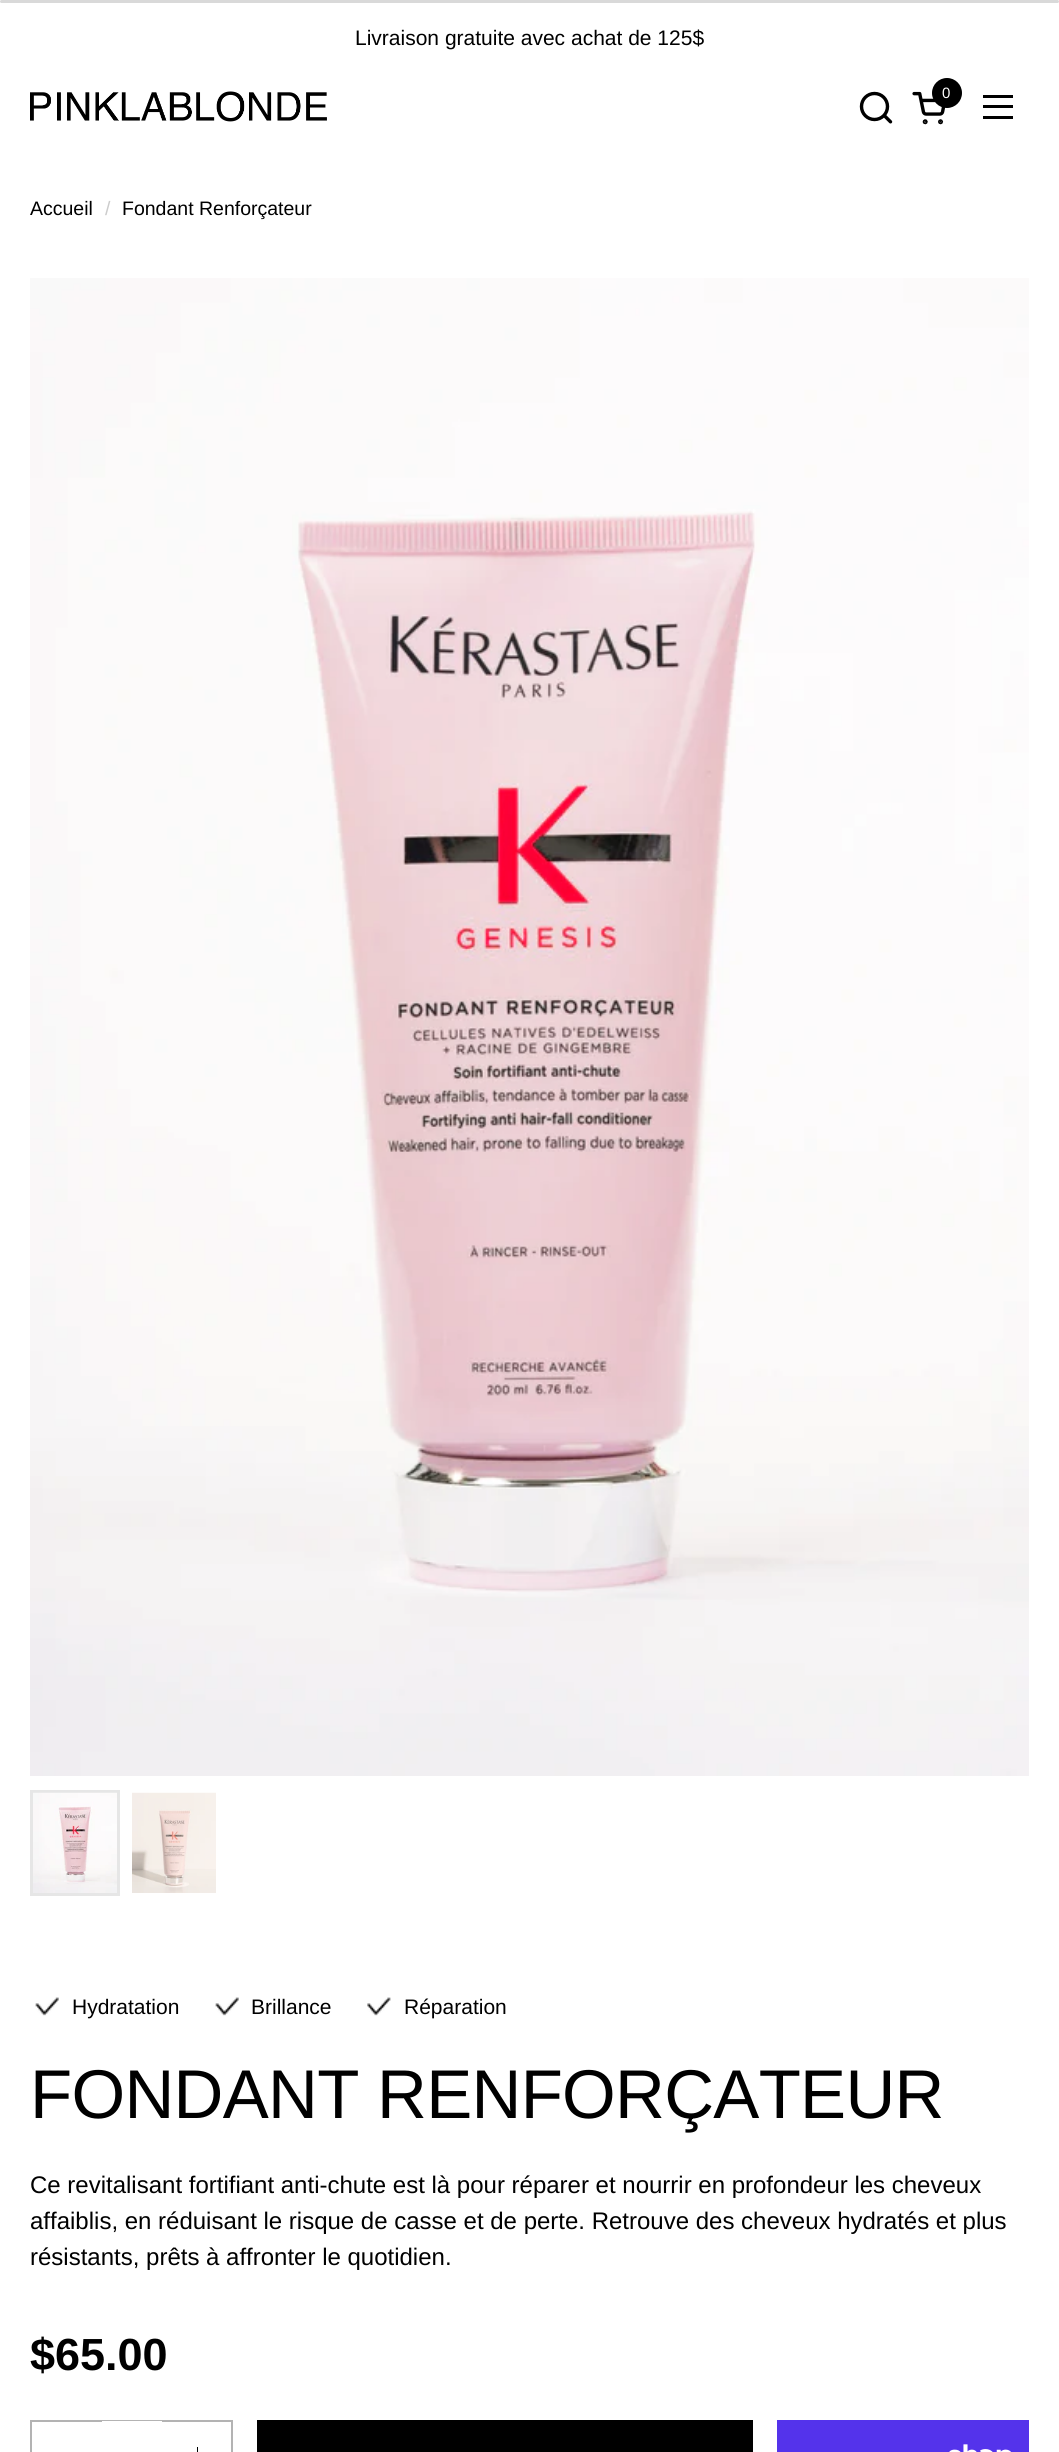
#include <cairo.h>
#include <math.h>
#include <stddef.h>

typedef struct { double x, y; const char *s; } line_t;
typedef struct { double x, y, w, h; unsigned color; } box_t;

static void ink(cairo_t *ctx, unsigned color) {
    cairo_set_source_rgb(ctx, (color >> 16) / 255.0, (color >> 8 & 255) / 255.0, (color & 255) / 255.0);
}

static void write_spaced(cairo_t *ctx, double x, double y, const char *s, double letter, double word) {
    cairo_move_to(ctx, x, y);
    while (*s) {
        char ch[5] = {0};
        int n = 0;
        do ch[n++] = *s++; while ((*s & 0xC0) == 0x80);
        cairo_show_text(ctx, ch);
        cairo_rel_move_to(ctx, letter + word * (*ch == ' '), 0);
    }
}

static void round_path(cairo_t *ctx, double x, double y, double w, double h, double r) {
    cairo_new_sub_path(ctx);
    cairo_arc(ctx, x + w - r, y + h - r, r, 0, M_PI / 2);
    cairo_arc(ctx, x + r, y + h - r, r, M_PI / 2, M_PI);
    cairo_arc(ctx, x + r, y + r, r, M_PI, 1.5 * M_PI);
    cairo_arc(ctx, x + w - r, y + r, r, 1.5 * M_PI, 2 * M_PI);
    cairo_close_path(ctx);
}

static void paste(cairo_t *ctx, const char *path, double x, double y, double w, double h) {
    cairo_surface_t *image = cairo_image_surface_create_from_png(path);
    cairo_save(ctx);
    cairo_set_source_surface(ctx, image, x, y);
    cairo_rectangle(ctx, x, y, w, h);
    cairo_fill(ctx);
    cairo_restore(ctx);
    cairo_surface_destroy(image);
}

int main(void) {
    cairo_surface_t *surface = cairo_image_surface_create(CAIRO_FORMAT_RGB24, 1059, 2452);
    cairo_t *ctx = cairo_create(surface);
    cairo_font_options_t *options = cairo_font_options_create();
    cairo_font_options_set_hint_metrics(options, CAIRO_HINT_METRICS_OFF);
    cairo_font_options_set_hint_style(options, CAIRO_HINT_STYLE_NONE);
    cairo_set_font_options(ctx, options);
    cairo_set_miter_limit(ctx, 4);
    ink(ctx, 0xFFFFFF);
    cairo_paint(ctx);
    ink(ctx, 0xD9D9D9);
    round_path(ctx, 0, 0, 1059, 3, 1.5);
    cairo_fill(ctx);
    cairo_select_font_face(ctx, "Liberation Sans", CAIRO_FONT_SLANT_NORMAL, CAIRO_FONT_WEIGHT_NORMAL);
    cairo_set_font_size(ctx, 21);
    ink(ctx, 0x000000);
    cairo_move_to(ctx, 355, 45);
    cairo_show_text(ctx, "Livraison gratuite avec achat de 125$");
    paste(ctx, "media/1.png", 30, 91, 297, 31);
    paste(ctx, "media/2.png", 859, 91, 34, 33);
    cairo_arc(ctx, 947, 93, 15, 0, 2 * M_PI);
    cairo_fill(ctx);
    cairo_set_font_size(ctx, 15);
    ink(ctx, 0xFFFFFF);
    cairo_move_to(ctx, 942, 98);
    cairo_show_text(ctx, "0");
    paste(ctx, "media/3.png", 912, 91, 33, 34);
    {
        static const box_t items[] = {
            {983, 95, 30, 3, 0x000000},
            {983, 105, 30, 3, 0x000000},
            {983, 116, 30, 3, 0x000000},
        };
        for (size_t i = 0; i < sizeof items / sizeof *items; i++) {
            ink(ctx, items[i].color);
            cairo_rectangle(ctx, items[i].x, items[i].y, items[i].w, items[i].h);
            cairo_fill(ctx);
        }
    }
    cairo_set_font_size(ctx, 19.5);
    cairo_move_to(ctx, 30, 215);
    cairo_show_text(ctx, "Accueil");
    ink(ctx, 0xCCCCCC);
    cairo_move_to(ctx, 105, 215);
    cairo_show_text(ctx, "/");
    ink(ctx, 0x000000);
    cairo_move_to(ctx, 122, 215);
    cairo_show_text(ctx, "Fondant Renforçateur");
    paste(ctx, "media/4.png", 30, 278, 999, 1498);
    cairo_rectangle(ctx, 31.5, 1791.5, 87, 103);
    ink(ctx, 0xE6E6E6);
    cairo_set_line_width(ctx, 3);
    cairo_stroke(ctx);
    paste(ctx, "media/5.png", 33, 1792, 84, 101);
    paste(ctx, "media/6.png", 132, 1792, 84, 101);
    paste(ctx, "media/7.png", 35, 1997, 24, 19);
    cairo_set_font_size(ctx, 21);
    ink(ctx, 0x000000);
    cairo_move_to(ctx, 72, 2014);
    cairo_show_text(ctx, "Hydratation");
    paste(ctx, "media/8.png", 215, 1997, 24, 19);
    cairo_move_to(ctx, 251, 2014);
    cairo_show_text(ctx, "Brillance");
    paste(ctx, "media/9.png", 367, 1997, 24, 19);
    cairo_move_to(ctx, 404, 2014);
    cairo_show_text(ctx, "Réparation");
    cairo_set_font_size(ctx, 69);
    write_spaced(ctx, 30, 2118, "FONDANT RENFORÇATEUR", -0.7, 0);
    cairo_set_font_size(ctx, 24);
    {
        static const line_t items[] = {
            {30, 2193, "Ce revitalisant fortifiant anti-chute est là pour réparer et nourrir en profondeur les cheveux"},
            {30, 2229, "affaiblis, en réduisant le risque de casse et de perte. Retrouve des cheveux hydratés et plus"},
            {30, 2265, "résistants, prêts à affronter le quotidien."},
        };
        for (size_t i = 0; i < sizeof items / sizeof *items; i++) {
            cairo_move_to(ctx, items[i].x, items[i].y);
            cairo_show_text(ctx, items[i].s);
        }
    }
    cairo_select_font_face(ctx, "Liberation Sans", CAIRO_FONT_SLANT_NORMAL, CAIRO_FONT_WEIGHT_BOLD);
    cairo_set_font_size(ctx, 45);
    cairo_move_to(ctx, 30, 2370);
    cairo_show_text(ctx, "$65.00");
    cairo_rectangle(ctx, 31, 2421, 201, 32);
    ink(ctx, 0xB3B3B3);
    cairo_set_line_width(ctx, 2);
    cairo_stroke(ctx);
    {
        static const box_t items[] = {
            {102, 2421, 60, 1, 0xFFFFFF},
            {197, 2447, 1, 5, 0x000000},
            {257, 2420, 496, 32, 0x000000},
            {777, 2420, 252, 32, 0x5433EB},
        };
        for (size_t i = 0; i < sizeof items / sizeof *items; i++) {
            ink(ctx, items[i].color);
            cairo_rectangle(ctx, items[i].x, items[i].y, items[i].w, items[i].h);
            cairo_fill(ctx);
        }
    }
    paste(ctx, "media/10.png", 949, 2444, 62, 8);
    cairo_surface_write_to_png(surface, "image.png");
    cairo_font_options_destroy(options);
    cairo_destroy(ctx);
    cairo_surface_destroy(surface);
    return 0;
}
